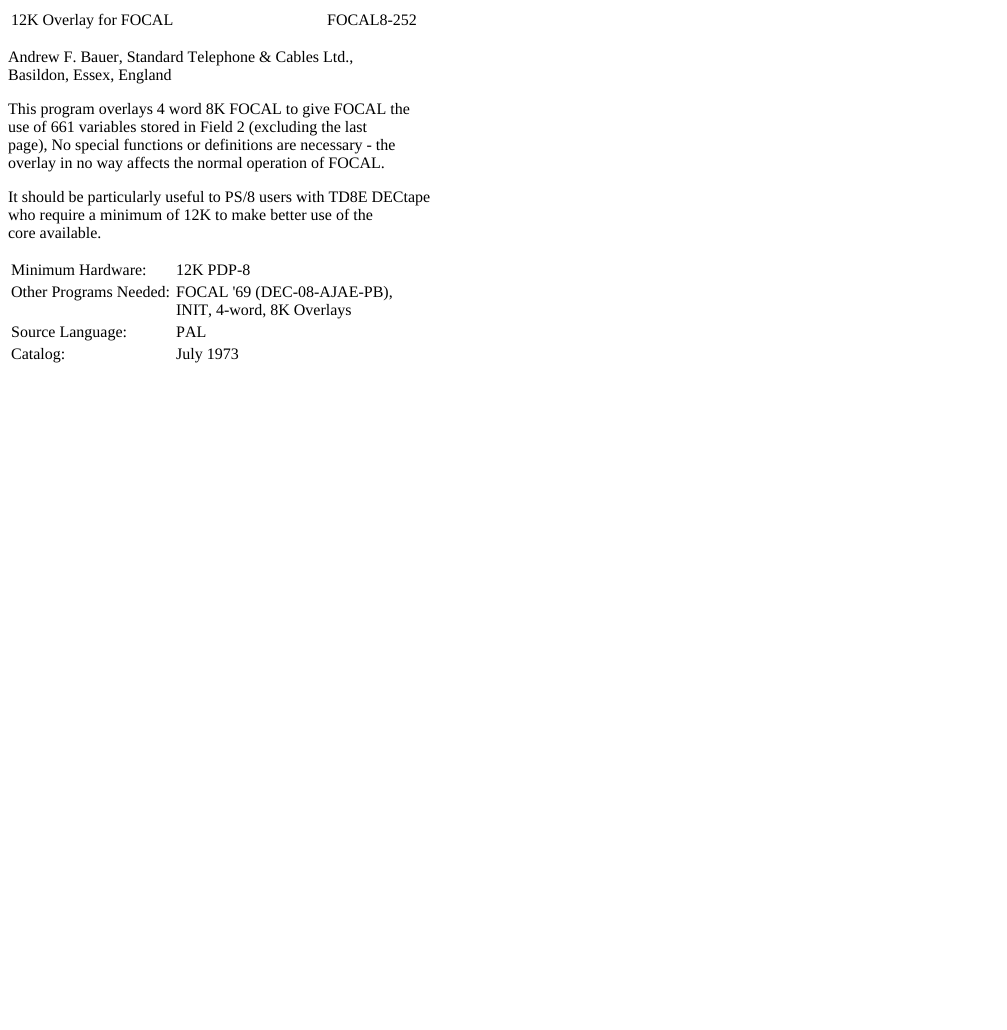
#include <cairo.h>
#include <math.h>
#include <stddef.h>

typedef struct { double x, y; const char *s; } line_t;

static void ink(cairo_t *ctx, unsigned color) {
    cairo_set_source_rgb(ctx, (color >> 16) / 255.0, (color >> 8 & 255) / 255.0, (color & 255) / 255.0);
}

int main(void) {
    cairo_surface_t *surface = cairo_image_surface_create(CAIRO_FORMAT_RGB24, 1007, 1030);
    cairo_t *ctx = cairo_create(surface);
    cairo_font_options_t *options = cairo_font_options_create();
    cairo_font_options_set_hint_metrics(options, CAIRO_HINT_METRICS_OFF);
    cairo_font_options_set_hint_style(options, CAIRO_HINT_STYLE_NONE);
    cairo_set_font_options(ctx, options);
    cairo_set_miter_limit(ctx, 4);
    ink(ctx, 0xFFFFFF);
    cairo_paint(ctx);
    cairo_select_font_face(ctx, "Liberation Serif", CAIRO_FONT_SLANT_NORMAL, CAIRO_FONT_WEIGHT_NORMAL);
    cairo_set_font_size(ctx, 16);
    ink(ctx, 0x000000);
    {
        static const line_t items[] = {
            {11, 25, "12K Overlay for FOCAL"},
            {327, 25, "FOCAL8-252"},
            {8, 62, "Andrew F. Bauer, Standard Telephone & Cables Ltd.,"},
            {8, 80, "Basildon, Essex, England"},
            {8, 114, "This program overlays 4 word 8K FOCAL to give FOCAL the"},
            {8, 132, "use of 661 variables stored in Field 2 (excluding the last"},
            {8, 150, "page), No special functions or definitions are necessary - the"},
            {8, 168, "overlay in no way affects the normal operation of FOCAL."},
            {8, 202, "It should be particularly useful to PS/8 users with TD8E DECtape"},
            {8, 220, "who require a minimum of 12K to make better use of the"},
            {8, 238, "core available."},
            {11, 275, "Minimum Hardware:"},
            {176, 275, "12K PDP-8"},
            {11, 297, "Other Programs Needed:"},
            {176, 297, "FOCAL '69 (DEC-08-AJAE-PB),"},
            {176, 315, "INIT, 4-word, 8K Overlays"},
            {11, 337, "Source Language:"},
            {176, 337, "PAL"},
            {11, 359, "Catalog:"},
            {176, 359, "July 1973"},
        };
        for (size_t i = 0; i < sizeof items / sizeof *items; i++) {
            cairo_move_to(ctx, items[i].x, items[i].y);
            cairo_show_text(ctx, items[i].s);
        }
    }
    cairo_surface_write_to_png(surface, "image.png");
    cairo_font_options_destroy(options);
    cairo_destroy(ctx);
    cairo_surface_destroy(surface);
    return 0;
}
